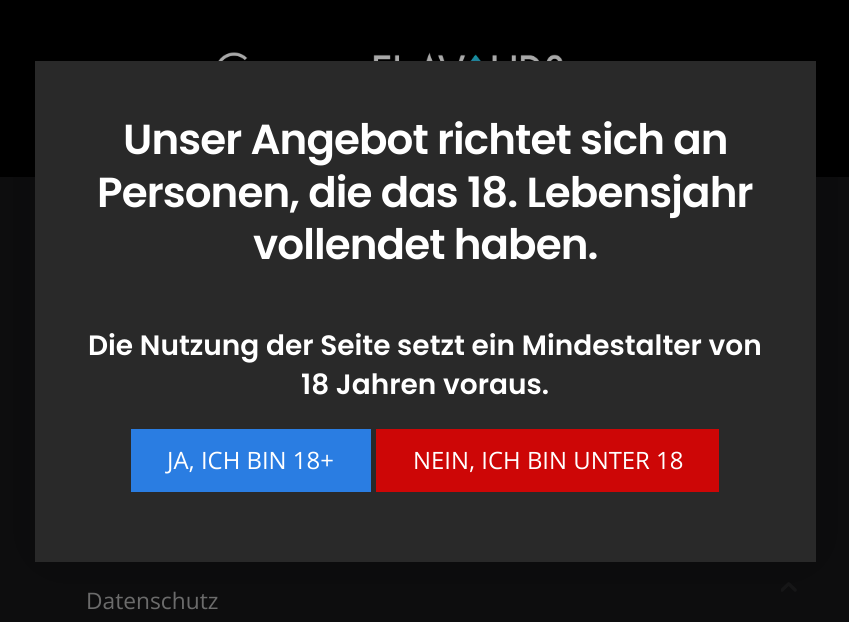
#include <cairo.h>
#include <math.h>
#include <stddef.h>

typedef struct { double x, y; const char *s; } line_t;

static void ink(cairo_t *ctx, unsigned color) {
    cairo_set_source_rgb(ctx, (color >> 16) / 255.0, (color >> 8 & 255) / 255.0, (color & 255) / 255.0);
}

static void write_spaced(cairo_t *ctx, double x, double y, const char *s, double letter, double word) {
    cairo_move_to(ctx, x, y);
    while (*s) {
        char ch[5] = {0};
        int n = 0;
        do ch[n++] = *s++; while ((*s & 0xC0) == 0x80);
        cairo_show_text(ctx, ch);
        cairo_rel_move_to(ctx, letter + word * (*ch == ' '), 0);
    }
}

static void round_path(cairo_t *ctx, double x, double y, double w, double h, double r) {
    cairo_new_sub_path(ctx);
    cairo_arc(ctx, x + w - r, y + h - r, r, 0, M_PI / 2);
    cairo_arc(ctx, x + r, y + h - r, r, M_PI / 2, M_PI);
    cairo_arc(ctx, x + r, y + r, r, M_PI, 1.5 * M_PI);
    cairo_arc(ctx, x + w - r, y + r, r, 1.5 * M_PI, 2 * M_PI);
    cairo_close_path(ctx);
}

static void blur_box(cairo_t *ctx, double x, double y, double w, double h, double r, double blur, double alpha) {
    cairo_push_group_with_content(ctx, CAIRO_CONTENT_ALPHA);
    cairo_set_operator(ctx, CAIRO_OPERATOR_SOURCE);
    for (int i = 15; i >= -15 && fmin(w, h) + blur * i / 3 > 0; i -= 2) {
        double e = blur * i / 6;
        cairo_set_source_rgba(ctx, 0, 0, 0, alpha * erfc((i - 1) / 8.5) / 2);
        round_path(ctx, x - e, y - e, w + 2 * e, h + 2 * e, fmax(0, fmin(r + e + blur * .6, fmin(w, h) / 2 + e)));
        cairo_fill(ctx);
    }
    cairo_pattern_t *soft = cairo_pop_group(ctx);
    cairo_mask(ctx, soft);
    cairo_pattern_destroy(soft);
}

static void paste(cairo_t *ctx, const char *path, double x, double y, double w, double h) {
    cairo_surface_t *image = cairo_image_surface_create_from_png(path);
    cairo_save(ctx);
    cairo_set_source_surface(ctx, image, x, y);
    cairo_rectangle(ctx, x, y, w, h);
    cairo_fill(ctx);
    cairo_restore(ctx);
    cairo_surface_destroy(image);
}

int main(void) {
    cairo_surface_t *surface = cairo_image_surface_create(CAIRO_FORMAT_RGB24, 849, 622);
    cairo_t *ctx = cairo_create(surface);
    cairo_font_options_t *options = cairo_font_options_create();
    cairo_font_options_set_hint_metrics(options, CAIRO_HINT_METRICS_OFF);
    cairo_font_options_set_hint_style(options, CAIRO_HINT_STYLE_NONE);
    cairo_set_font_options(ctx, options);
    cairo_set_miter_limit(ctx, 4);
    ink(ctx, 0x0D0D0E);
    cairo_paint(ctx);
    ink(ctx, 0x000000);
    cairo_rectangle(ctx, 0, 0, 849, 177);
    cairo_fill(ctx);
    paste(ctx, "media/1.png", 218, 52, 345, 9);
    ink(ctx, 0x000000);
    blur_box(ctx, 35, 61, 781, 501, 7, 44, 0.12);
    ink(ctx, 0x292929);
    cairo_rectangle(ctx, 35, 61, 781, 501);
    cairo_fill(ctx);
    cairo_select_font_face(ctx, "Poppins SemiBold", CAIRO_FONT_SLANT_NORMAL, CAIRO_FONT_WEIGHT_NORMAL);
    cairo_set_font_size(ctx, 42);
    ink(ctx, 0xFFFFFF);
    {
        static const line_t items[] = {
            {123, 154, "Unser Angebot richtet sich an"},
            {97, 207, "Personen, die das 18. Lebensjahr"},
            {253, 259, "vollendet haben."},
        };
        for (size_t i = 0; i < sizeof items / sizeof *items; i++) {
            write_spaced(ctx, items[i].x, items[i].y, items[i].s, -0.9, 0);
        }
    }
    cairo_set_font_size(ctx, 28);
    cairo_move_to(ctx, 88, 355);
    cairo_show_text(ctx, "Die Nutzung der Seite setzt ein Mindestalter von");
    cairo_move_to(ctx, 301, 394);
    cairo_show_text(ctx, "18 Jahren voraus.");
    ink(ctx, 0x2A7DE2);
    cairo_rectangle(ctx, 131, 429, 240, 63);
    cairo_fill(ctx);
    cairo_select_font_face(ctx, "Open Sans", CAIRO_FONT_SLANT_NORMAL, CAIRO_FONT_WEIGHT_NORMAL);
    cairo_set_font_size(ctx, 23.9);
    ink(ctx, 0xFFFFFF);
    cairo_move_to(ctx, 167, 469);
    cairo_show_text(ctx, "JA, ICH BIN 18+");
    ink(ctx, 0xCD0606);
    cairo_rectangle(ctx, 376, 429, 343, 63);
    cairo_fill(ctx);
    ink(ctx, 0xFFFFFF);
    cairo_move_to(ctx, 413, 469);
    cairo_show_text(ctx, "NEIN, ICH BIN UNTER 18");
    paste(ctx, "media/2.png", 781, 582, 16, 10);
    cairo_set_font_size(ctx, 22.75);
    ink(ctx, 0x6B6B6B);
    cairo_move_to(ctx, 86, 609);
    cairo_show_text(ctx, "Datenschutz");
    cairo_surface_write_to_png(surface, "image.png");
    cairo_font_options_destroy(options);
    cairo_destroy(ctx);
    cairo_surface_destroy(surface);
    return 0;
}
